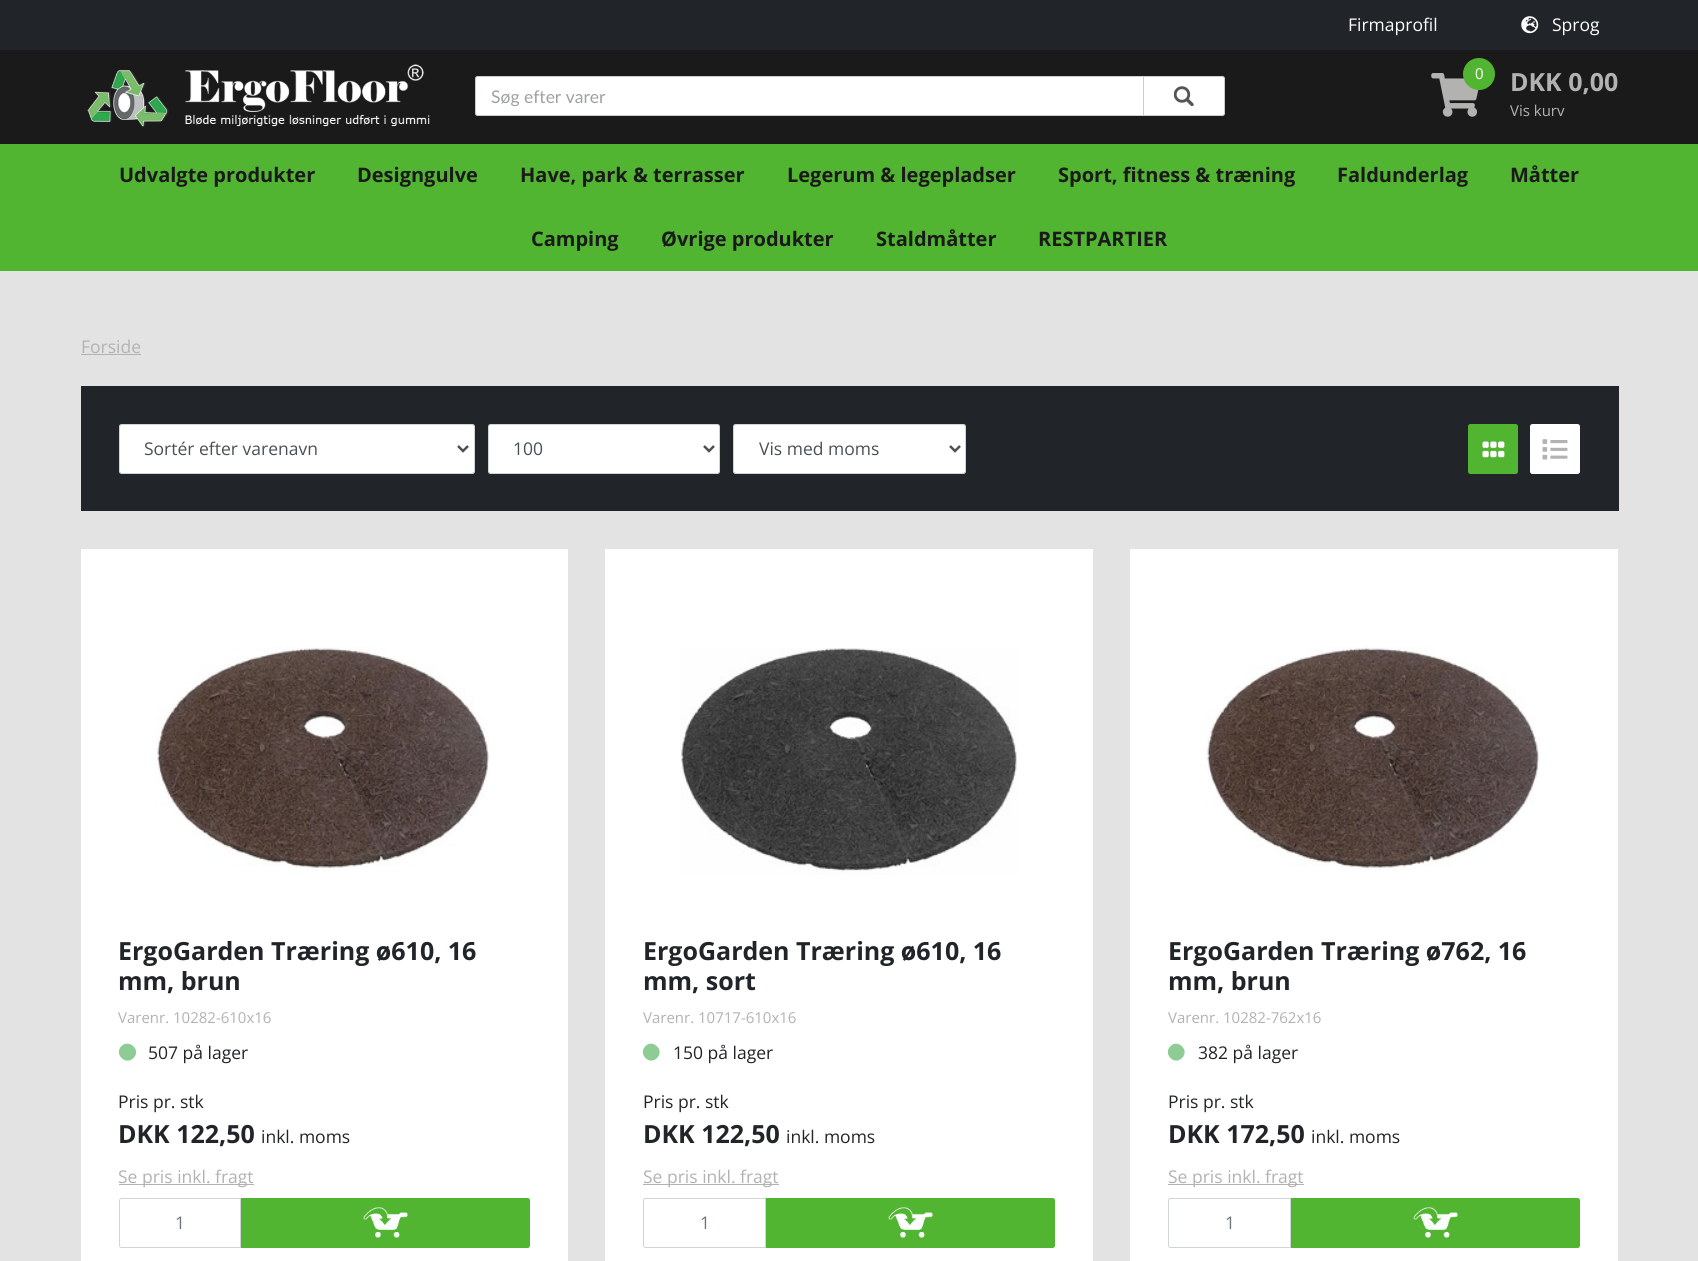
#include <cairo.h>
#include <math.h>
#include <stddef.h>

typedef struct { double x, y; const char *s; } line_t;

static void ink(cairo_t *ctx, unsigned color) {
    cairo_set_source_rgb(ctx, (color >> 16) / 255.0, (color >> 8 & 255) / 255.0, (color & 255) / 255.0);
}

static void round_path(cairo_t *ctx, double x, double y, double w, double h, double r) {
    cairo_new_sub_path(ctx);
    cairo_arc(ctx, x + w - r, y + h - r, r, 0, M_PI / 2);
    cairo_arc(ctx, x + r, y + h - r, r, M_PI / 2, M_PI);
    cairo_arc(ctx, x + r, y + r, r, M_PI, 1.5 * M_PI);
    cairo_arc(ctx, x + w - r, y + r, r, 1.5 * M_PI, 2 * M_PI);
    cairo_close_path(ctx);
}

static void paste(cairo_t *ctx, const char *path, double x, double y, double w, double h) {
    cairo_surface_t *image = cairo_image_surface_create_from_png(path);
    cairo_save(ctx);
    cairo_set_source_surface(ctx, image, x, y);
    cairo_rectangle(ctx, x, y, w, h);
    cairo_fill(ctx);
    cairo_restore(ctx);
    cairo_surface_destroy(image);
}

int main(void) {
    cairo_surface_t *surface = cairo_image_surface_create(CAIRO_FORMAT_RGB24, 1698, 1261);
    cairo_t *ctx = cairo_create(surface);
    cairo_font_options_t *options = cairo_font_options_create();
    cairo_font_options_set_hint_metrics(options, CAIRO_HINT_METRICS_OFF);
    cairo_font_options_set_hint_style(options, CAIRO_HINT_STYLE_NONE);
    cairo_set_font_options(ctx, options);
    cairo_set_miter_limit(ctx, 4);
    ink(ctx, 0xE3E3E3);
    cairo_paint(ctx);
    ink(ctx, 0x212529);
    cairo_rectangle(ctx, 0, 0, 1698, 50);
    cairo_fill(ctx);
    cairo_select_font_face(ctx, "Open Sans", CAIRO_FONT_SLANT_NORMAL, CAIRO_FONT_WEIGHT_NORMAL);
    cairo_set_font_size(ctx, 17.5);
    ink(ctx, 0xFFFFFF);
    cairo_move_to(ctx, 1348, 31);
    cairo_show_text(ctx, "Firmaprofil");
    paste(ctx, "media/1.png", 1521, 16, 18, 18);
    cairo_move_to(ctx, 1552, 31);
    cairo_show_text(ctx, "Sprog");
    ink(ctx, 0x1A1A1A);
    cairo_rectangle(ctx, 0, 50, 1698, 94);
    cairo_fill(ctx);
    paste(ctx, "media/2.png", 87, 64, 343, 63);
    ink(ctx, 0xFFFFFF);
    cairo_new_path(ctx);
    cairo_move_to(ctx, 1143.5, 76.5);
    cairo_line_to(ctx, 1222.5, 76.5);
    cairo_curve_to(ctx, 1223.5, 76.5, 1224.5, 77.5, 1224.5, 78.5);
    cairo_line_to(ctx, 1224.5, 113.5);
    cairo_curve_to(ctx, 1224.5, 114.5, 1223.5, 115.5, 1222.5, 115.5);
    cairo_line_to(ctx, 1143.5, 115.5);
    cairo_close_path(ctx);
    cairo_fill_preserve(ctx);
    ink(ctx, 0xCCCCCC);
    cairo_set_line_width(ctx, 1);
    cairo_stroke(ctx);
    ink(ctx, 0xFFFFFF);
    cairo_new_path(ctx);
    cairo_move_to(ctx, 477.5, 76.5);
    cairo_line_to(ctx, 1143.5, 76.5);
    cairo_line_to(ctx, 1143.5, 115.5);
    cairo_line_to(ctx, 477.5, 115.5);
    cairo_curve_to(ctx, 476.5, 115.5, 475.5, 114.5, 475.5, 113.5);
    cairo_line_to(ctx, 475.5, 78.5);
    cairo_curve_to(ctx, 475.5, 77.5, 476.5, 76.5, 477.5, 76.5);
    cairo_close_path(ctx);
    cairo_fill_preserve(ctx);
    ink(ctx, 0xCCCCCC);
    cairo_stroke(ctx);
    cairo_select_font_face(ctx, "Lato", CAIRO_FONT_SLANT_NORMAL, CAIRO_FONT_WEIGHT_NORMAL);
    ink(ctx, 0x9DA1A4);
    cairo_move_to(ctx, 491, 103);
    cairo_show_text(ctx, "Søg efter varer");
    paste(ctx, "media/3.png", 1174, 86, 20, 20);
    paste(ctx, "media/4.png", 1431, 73, 48, 44);
    ink(ctx, 0x52B531);
    cairo_arc(ctx, 1479, 74, 16, 0, 2 * M_PI);
    cairo_fill(ctx);
    cairo_select_font_face(ctx, "Open Sans", CAIRO_FONT_SLANT_NORMAL, CAIRO_FONT_WEIGHT_NORMAL);
    cairo_set_font_size(ctx, 15);
    ink(ctx, 0xFFFFFF);
    cairo_move_to(ctx, 1475, 79);
    cairo_show_text(ctx, "0");
    cairo_select_font_face(ctx, "Open Sans", CAIRO_FONT_SLANT_NORMAL, CAIRO_FONT_WEIGHT_BOLD);
    cairo_set_font_size(ctx, 25);
    ink(ctx, 0xB2B2B1);
    cairo_move_to(ctx, 1510, 91);
    cairo_show_text(ctx, "DKK 0,00");
    cairo_select_font_face(ctx, "Open Sans", CAIRO_FONT_SLANT_NORMAL, CAIRO_FONT_WEIGHT_NORMAL);
    cairo_set_font_size(ctx, 15);
    cairo_move_to(ctx, 1510, 116);
    cairo_show_text(ctx, "Vis kurv");
    ink(ctx, 0x52B531);
    cairo_rectangle(ctx, 0, 144, 1698, 127);
    cairo_fill(ctx);
    cairo_select_font_face(ctx, "Open Sans", CAIRO_FONT_SLANT_NORMAL, CAIRO_FONT_WEIGHT_BOLD);
    cairo_set_font_size(ctx, 20);
    ink(ctx, 0x1A1A1A);
    {
        static const line_t items[] = {
            {119, 182, "Udvalgte produkter"},
            {357, 182, "Designgulve"},
            {520, 182, "Have, park & terrasser"},
            {787, 182, "Legerum & legepladser"},
            {1058, 182, "Sport, fitness & træning"},
            {1337, 182, "Faldunderlag"},
            {1510, 182, "Måtter"},
            {531, 246, "Camping"},
            {661, 246, "Øvrige produkter"},
            {876, 246, "Staldmåtter"},
            {1038, 246, "RESTPARTIER"},
        };
        for (size_t i = 0; i < sizeof items / sizeof *items; i++) {
            cairo_move_to(ctx, items[i].x, items[i].y);
            cairo_show_text(ctx, items[i].s);
        }
    }
    cairo_select_font_face(ctx, "Open Sans", CAIRO_FONT_SLANT_NORMAL, CAIRO_FONT_WEIGHT_NORMAL);
    cairo_set_font_size(ctx, 17.5);
    ink(ctx, 0xB2B2B1);
    cairo_move_to(ctx, 81, 353);
    cairo_show_text(ctx, "Forside");
    cairo_rectangle(ctx, 81, 354, 60, 1);
    cairo_fill(ctx);
    ink(ctx, 0x212529);
    cairo_rectangle(ctx, 81, 386, 1538, 125);
    cairo_fill(ctx);
    ink(ctx, 0xFFFFFF);
    round_path(ctx, 120, 425, 354, 48, 1);
    cairo_fill(ctx);
    round_path(ctx, 119.5, 424.5, 355, 49, 2);
    ink(ctx, 0xCED4DA);
    cairo_stroke(ctx);
    cairo_new_path(ctx);
    cairo_move_to(ctx, 458, 446);
    cairo_line_to(ctx, 463, 451);
    cairo_line_to(ctx, 468, 446);
    ink(ctx, 0x495057);
    cairo_set_line_width(ctx, 2.5);
    cairo_stroke(ctx);
    cairo_move_to(ctx, 144, 455);
    cairo_show_text(ctx, "Sortér efter varenavn");
    ink(ctx, 0xFFFFFF);
    round_path(ctx, 489, 425, 230, 48, 1);
    cairo_fill(ctx);
    round_path(ctx, 488.5, 424.5, 231, 49, 2);
    ink(ctx, 0xCED4DA);
    cairo_set_line_width(ctx, 1);
    cairo_stroke(ctx);
    cairo_new_path(ctx);
    cairo_move_to(ctx, 704, 446);
    cairo_line_to(ctx, 709, 451);
    cairo_line_to(ctx, 714, 446);
    ink(ctx, 0x495057);
    cairo_set_line_width(ctx, 2.5);
    cairo_stroke(ctx);
    cairo_move_to(ctx, 513, 455);
    cairo_show_text(ctx, "100");
    ink(ctx, 0xFFFFFF);
    round_path(ctx, 734, 425, 231, 48, 1);
    cairo_fill(ctx);
    round_path(ctx, 733.5, 424.5, 232, 49, 2);
    ink(ctx, 0xCED4DA);
    cairo_set_line_width(ctx, 1);
    cairo_stroke(ctx);
    cairo_new_path(ctx);
    cairo_move_to(ctx, 950, 446);
    cairo_line_to(ctx, 955, 451);
    cairo_line_to(ctx, 960, 446);
    ink(ctx, 0x495057);
    cairo_set_line_width(ctx, 2.5);
    cairo_stroke(ctx);
    cairo_move_to(ctx, 759, 455);
    cairo_show_text(ctx, "Vis med moms");
    ink(ctx, 0x52B531);
    round_path(ctx, 1468, 424, 50, 50, 2.5);
    cairo_fill(ctx);
    paste(ctx, "media/5.png", 1482, 441, 23, 17);
    ink(ctx, 0xFFFFFF);
    round_path(ctx, 1530, 424, 50, 50, 2.5);
    cairo_fill(ctx);
    paste(ctx, "media/6.png", 1542, 439, 26, 21);
    cairo_rectangle(ctx, 81, 549, 487, 712);
    cairo_fill(ctx);
    paste(ctx, "media/7.png", 155, 646, 334, 225);
    cairo_select_font_face(ctx, "Open Sans", CAIRO_FONT_SLANT_NORMAL, CAIRO_FONT_WEIGHT_BOLD);
    cairo_set_font_size(ctx, 25);
    ink(ctx, 0x212529);
    cairo_move_to(ctx, 118, 960);
    cairo_show_text(ctx, "ErgoGarden Træring ø610, 16");
    cairo_move_to(ctx, 118, 990);
    cairo_show_text(ctx, "mm, brun");
    cairo_select_font_face(ctx, "Open Sans", CAIRO_FONT_SLANT_NORMAL, CAIRO_FONT_WEIGHT_NORMAL);
    cairo_set_font_size(ctx, 15);
    ink(ctx, 0xB2B2B1);
    cairo_move_to(ctx, 118, 1023);
    cairo_show_text(ctx, "Varenr. 10282-610x16");
    ink(ctx, 0x8FCB94);
    cairo_new_path(ctx);
    cairo_move_to(ctx, 121.5, 1046);
    cairo_curve_to(ctx, 129.5, 1038.5, 141.5, 1050.5, 133.5, 1058);
    cairo_curve_to(ctx, 125.5, 1066, 113.5, 1054, 121.5, 1046);
    cairo_close_path(ctx);
    cairo_fill(ctx);
    cairo_set_font_size(ctx, 17.5);
    ink(ctx, 0x212529);
    cairo_move_to(ctx, 148, 1059);
    cairo_show_text(ctx, "507 på lager");
    cairo_move_to(ctx, 118, 1108);
    cairo_show_text(ctx, "Pris pr. stk");
    cairo_select_font_face(ctx, "Open Sans", CAIRO_FONT_SLANT_NORMAL, CAIRO_FONT_WEIGHT_BOLD);
    cairo_set_font_size(ctx, 25);
    cairo_move_to(ctx, 118, 1143);
    cairo_show_text(ctx, "DKK 122,50");
    cairo_select_font_face(ctx, "Open Sans", CAIRO_FONT_SLANT_NORMAL, CAIRO_FONT_WEIGHT_NORMAL);
    cairo_set_font_size(ctx, 17.5);
    cairo_move_to(ctx, 261, 1143);
    cairo_show_text(ctx, "inkl. moms");
    ink(ctx, 0xB2B2B1);
    cairo_rectangle(ctx, 119, 1184, 135, 1);
    cairo_fill(ctx);
    cairo_move_to(ctx, 118, 1183);
    cairo_show_text(ctx, "Se pris inkl. fragt");
    cairo_new_path(ctx);
    cairo_move_to(ctx, 121.5, 1198.5);
    cairo_line_to(ctx, 240.5, 1198.5);
    cairo_line_to(ctx, 240.5, 1247.5);
    cairo_line_to(ctx, 121.5, 1247.5);
    cairo_curve_to(ctx, 120.5, 1247.5, 119.5, 1246.5, 119.5, 1245.5);
    cairo_line_to(ctx, 119.5, 1200.5);
    cairo_curve_to(ctx, 119.5, 1199.5, 120.5, 1198.5, 121.5, 1198.5);
    cairo_close_path(ctx);
    ink(ctx, 0xCED4DA);
    cairo_set_line_width(ctx, 1);
    cairo_stroke(ctx);
    ink(ctx, 0x6C757D);
    cairo_move_to(ctx, 175, 1229);
    cairo_show_text(ctx, "1");
    ink(ctx, 0x52B531);
    cairo_new_path(ctx);
    cairo_move_to(ctx, 241, 1198);
    cairo_line_to(ctx, 527.5, 1198);
    cairo_curve_to(ctx, 529, 1198, 530, 1199, 530, 1200.5);
    cairo_line_to(ctx, 530, 1245.5);
    cairo_curve_to(ctx, 530, 1247, 529, 1248, 527.5, 1248);
    cairo_line_to(ctx, 241, 1248);
    cairo_close_path(ctx);
    cairo_fill(ctx);
    paste(ctx, "media/8.png", 363, 1207, 45, 31);
    ink(ctx, 0xFFFFFF);
    cairo_rectangle(ctx, 605, 549, 488, 712);
    cairo_fill(ctx);
    paste(ctx, "media/9.png", 680, 648, 338, 227);
    cairo_select_font_face(ctx, "Open Sans", CAIRO_FONT_SLANT_NORMAL, CAIRO_FONT_WEIGHT_BOLD);
    cairo_set_font_size(ctx, 25);
    ink(ctx, 0x212529);
    cairo_move_to(ctx, 643, 960);
    cairo_show_text(ctx, "ErgoGarden Træring ø610, 16");
    cairo_move_to(ctx, 643, 990);
    cairo_show_text(ctx, "mm, sort");
    cairo_select_font_face(ctx, "Open Sans", CAIRO_FONT_SLANT_NORMAL, CAIRO_FONT_WEIGHT_NORMAL);
    cairo_set_font_size(ctx, 15);
    ink(ctx, 0xB2B2B1);
    cairo_move_to(ctx, 643, 1023);
    cairo_show_text(ctx, "Varenr. 10717-610x16");
    ink(ctx, 0x8FCB94);
    cairo_new_path(ctx);
    cairo_move_to(ctx, 645.5, 1046);
    cairo_curve_to(ctx, 653, 1038.5, 665, 1050.5, 657, 1058);
    cairo_curve_to(ctx, 649.5, 1066, 637.5, 1054, 645.5, 1046);
    cairo_close_path(ctx);
    cairo_fill(ctx);
    cairo_set_font_size(ctx, 17.5);
    ink(ctx, 0x212529);
    cairo_move_to(ctx, 673, 1059);
    cairo_show_text(ctx, "150 på lager");
    cairo_move_to(ctx, 643, 1108);
    cairo_show_text(ctx, "Pris pr. stk");
    cairo_select_font_face(ctx, "Open Sans", CAIRO_FONT_SLANT_NORMAL, CAIRO_FONT_WEIGHT_BOLD);
    cairo_set_font_size(ctx, 25);
    cairo_move_to(ctx, 643, 1143);
    cairo_show_text(ctx, "DKK 122,50");
    cairo_select_font_face(ctx, "Open Sans", CAIRO_FONT_SLANT_NORMAL, CAIRO_FONT_WEIGHT_NORMAL);
    cairo_set_font_size(ctx, 17.5);
    cairo_move_to(ctx, 786, 1143);
    cairo_show_text(ctx, "inkl. moms");
    ink(ctx, 0xB2B2B1);
    cairo_rectangle(ctx, 643, 1184, 136, 1);
    cairo_fill(ctx);
    cairo_move_to(ctx, 643, 1183);
    cairo_show_text(ctx, "Se pris inkl. fragt");
    cairo_new_path(ctx);
    cairo_move_to(ctx, 645.5, 1198.5);
    cairo_line_to(ctx, 765.5, 1198.5);
    cairo_line_to(ctx, 765.5, 1247.5);
    cairo_line_to(ctx, 645.5, 1247.5);
    cairo_curve_to(ctx, 644.5, 1247.5, 643.5, 1246.5, 643.5, 1245.5);
    cairo_line_to(ctx, 643.5, 1200.5);
    cairo_curve_to(ctx, 643.5, 1199.5, 644.5, 1198.5, 645.5, 1198.5);
    cairo_close_path(ctx);
    ink(ctx, 0xCED4DA);
    cairo_stroke(ctx);
    ink(ctx, 0x6C757D);
    cairo_move_to(ctx, 700, 1229);
    cairo_show_text(ctx, "1");
    ink(ctx, 0x52B531);
    cairo_new_path(ctx);
    cairo_move_to(ctx, 766, 1198);
    cairo_line_to(ctx, 1052.5, 1198);
    cairo_curve_to(ctx, 1054, 1198, 1055, 1199, 1055, 1200.5);
    cairo_line_to(ctx, 1055, 1245.5);
    cairo_curve_to(ctx, 1055, 1247, 1054, 1248, 1052.5, 1248);
    cairo_line_to(ctx, 766, 1248);
    cairo_close_path(ctx);
    cairo_fill(ctx);
    paste(ctx, "media/8.png", 888, 1207, 45, 31);
    ink(ctx, 0xFFFFFF);
    cairo_rectangle(ctx, 1130, 549, 488, 712);
    cairo_fill(ctx);
    paste(ctx, "media/10.png", 1205, 646, 334, 225);
    cairo_select_font_face(ctx, "Open Sans", CAIRO_FONT_SLANT_NORMAL, CAIRO_FONT_WEIGHT_BOLD);
    cairo_set_font_size(ctx, 25);
    ink(ctx, 0x212529);
    cairo_move_to(ctx, 1168, 960);
    cairo_show_text(ctx, "ErgoGarden Træring ø762, 16");
    cairo_move_to(ctx, 1168, 990);
    cairo_show_text(ctx, "mm, brun");
    cairo_select_font_face(ctx, "Open Sans", CAIRO_FONT_SLANT_NORMAL, CAIRO_FONT_WEIGHT_NORMAL);
    cairo_set_font_size(ctx, 15);
    ink(ctx, 0xB2B2B1);
    cairo_move_to(ctx, 1168, 1023);
    cairo_show_text(ctx, "Varenr. 10282-762x16");
    ink(ctx, 0x8FCB94);
    cairo_new_path(ctx);
    cairo_move_to(ctx, 1170.5, 1046);
    cairo_curve_to(ctx, 1178, 1038.5, 1190, 1050.5, 1182, 1058);
    cairo_curve_to(ctx, 1174.5, 1066, 1162.5, 1054, 1170.5, 1046);
    cairo_close_path(ctx);
    cairo_fill(ctx);
    cairo_set_font_size(ctx, 17.5);
    ink(ctx, 0x212529);
    cairo_move_to(ctx, 1198, 1059);
    cairo_show_text(ctx, "382 på lager");
    cairo_move_to(ctx, 1168, 1108);
    cairo_show_text(ctx, "Pris pr. stk");
    cairo_select_font_face(ctx, "Open Sans", CAIRO_FONT_SLANT_NORMAL, CAIRO_FONT_WEIGHT_BOLD);
    cairo_set_font_size(ctx, 25);
    cairo_move_to(ctx, 1168, 1143);
    cairo_show_text(ctx, "DKK 172,50");
    cairo_select_font_face(ctx, "Open Sans", CAIRO_FONT_SLANT_NORMAL, CAIRO_FONT_WEIGHT_NORMAL);
    cairo_set_font_size(ctx, 17.5);
    cairo_move_to(ctx, 1311, 1143);
    cairo_show_text(ctx, "inkl. moms");
    ink(ctx, 0xB2B2B1);
    cairo_rectangle(ctx, 1168, 1184, 136, 1);
    cairo_fill(ctx);
    cairo_move_to(ctx, 1168, 1183);
    cairo_show_text(ctx, "Se pris inkl. fragt");
    cairo_new_path(ctx);
    cairo_move_to(ctx, 1170.5, 1198.5);
    cairo_line_to(ctx, 1290.5, 1198.5);
    cairo_line_to(ctx, 1290.5, 1247.5);
    cairo_line_to(ctx, 1170.5, 1247.5);
    cairo_curve_to(ctx, 1169.5, 1247.5, 1168.5, 1246.5, 1168.5, 1245.5);
    cairo_line_to(ctx, 1168.5, 1200.5);
    cairo_curve_to(ctx, 1168.5, 1199.5, 1169.5, 1198.5, 1170.5, 1198.5);
    cairo_close_path(ctx);
    ink(ctx, 0xCED4DA);
    cairo_stroke(ctx);
    ink(ctx, 0x6C757D);
    cairo_move_to(ctx, 1225, 1229);
    cairo_show_text(ctx, "1");
    ink(ctx, 0x52B531);
    cairo_new_path(ctx);
    cairo_move_to(ctx, 1291, 1198);
    cairo_line_to(ctx, 1577.5, 1198);
    cairo_curve_to(ctx, 1579, 1198, 1580, 1199, 1580, 1200.5);
    cairo_line_to(ctx, 1580, 1245.5);
    cairo_curve_to(ctx, 1580, 1247, 1579, 1248, 1577.5, 1248);
    cairo_line_to(ctx, 1291, 1248);
    cairo_close_path(ctx);
    cairo_fill(ctx);
    paste(ctx, "media/11.png", 1413, 1207, 45, 31);
    cairo_surface_write_to_png(surface, "image.png");
    cairo_font_options_destroy(options);
    cairo_destroy(ctx);
    cairo_surface_destroy(surface);
    return 0;
}
